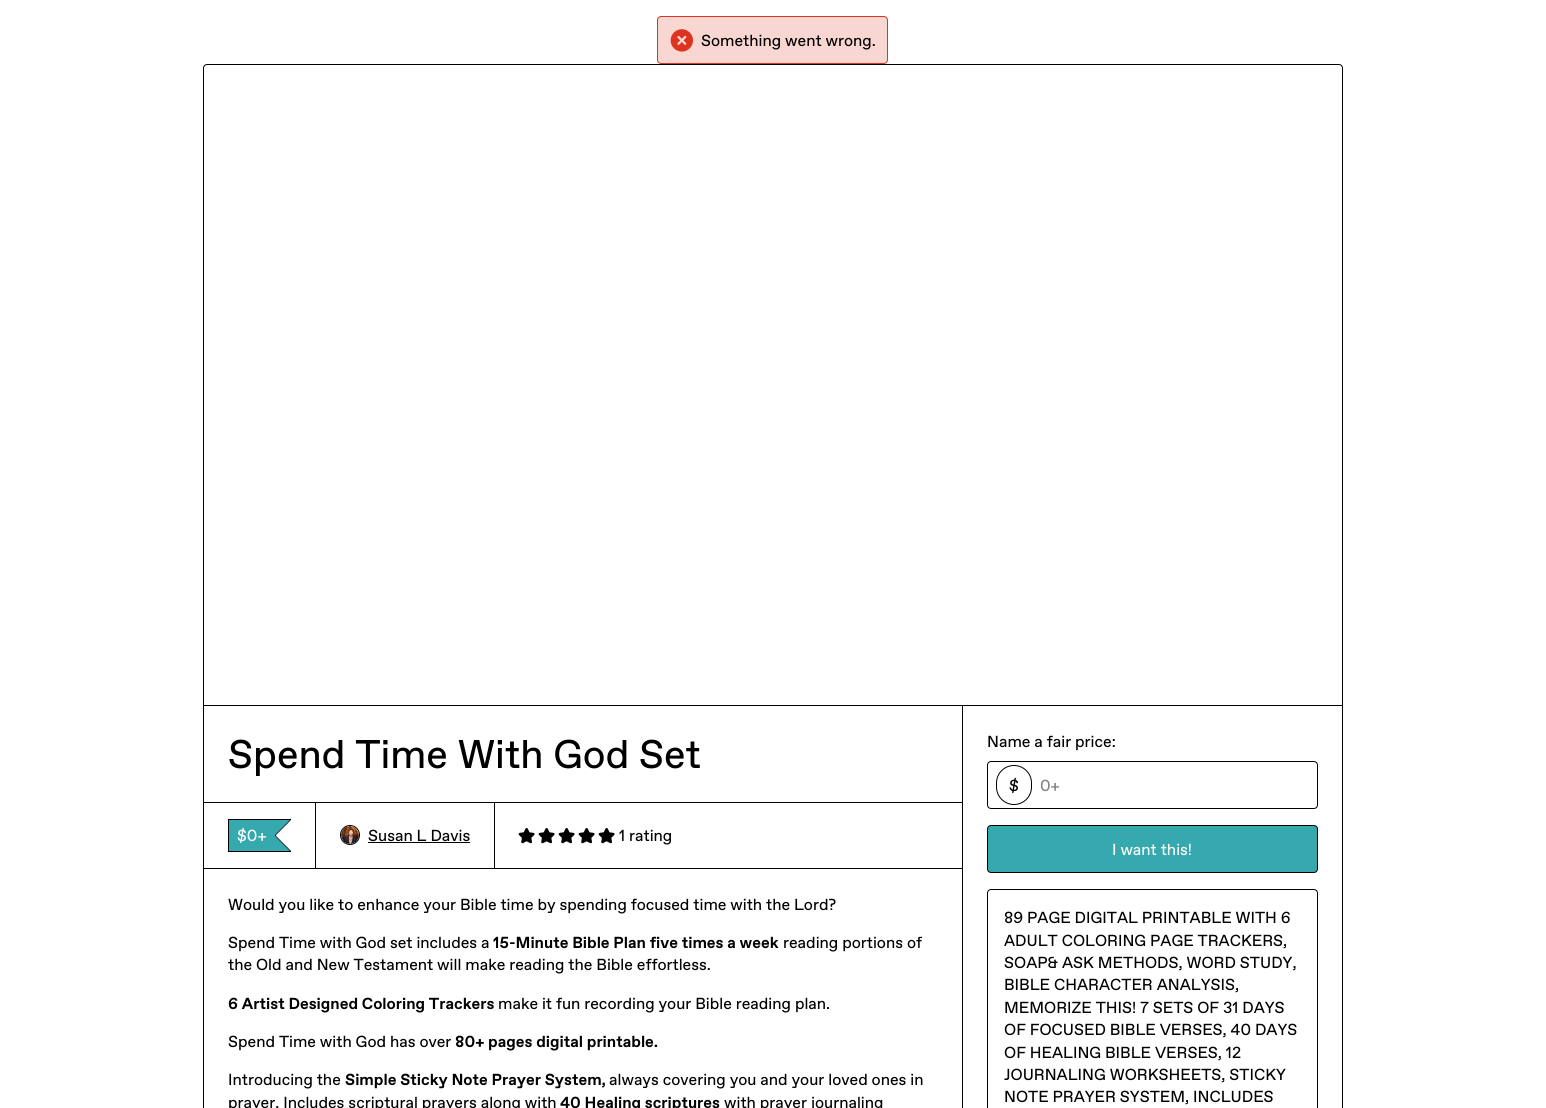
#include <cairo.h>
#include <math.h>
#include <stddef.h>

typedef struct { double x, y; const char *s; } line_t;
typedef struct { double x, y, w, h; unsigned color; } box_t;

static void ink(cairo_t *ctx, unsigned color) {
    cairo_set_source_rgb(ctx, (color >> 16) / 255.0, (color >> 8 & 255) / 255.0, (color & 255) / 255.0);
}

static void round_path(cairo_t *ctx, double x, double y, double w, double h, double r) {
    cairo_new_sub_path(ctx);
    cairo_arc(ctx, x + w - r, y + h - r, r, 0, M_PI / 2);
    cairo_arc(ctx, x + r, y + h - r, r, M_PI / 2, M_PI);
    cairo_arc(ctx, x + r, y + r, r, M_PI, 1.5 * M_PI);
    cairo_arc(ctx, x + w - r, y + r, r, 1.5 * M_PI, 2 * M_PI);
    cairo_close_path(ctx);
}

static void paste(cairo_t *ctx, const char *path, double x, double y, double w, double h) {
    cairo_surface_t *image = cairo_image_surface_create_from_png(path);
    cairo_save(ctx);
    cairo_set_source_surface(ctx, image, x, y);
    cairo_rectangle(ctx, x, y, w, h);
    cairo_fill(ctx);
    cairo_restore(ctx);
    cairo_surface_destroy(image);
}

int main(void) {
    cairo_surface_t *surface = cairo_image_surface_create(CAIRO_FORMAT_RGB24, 1546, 1108);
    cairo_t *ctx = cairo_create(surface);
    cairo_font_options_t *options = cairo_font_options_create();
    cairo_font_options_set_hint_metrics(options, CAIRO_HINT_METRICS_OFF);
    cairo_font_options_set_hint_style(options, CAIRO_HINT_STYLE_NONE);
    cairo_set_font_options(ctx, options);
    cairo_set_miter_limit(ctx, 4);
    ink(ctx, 0xFFFFFF);
    cairo_paint(ctx);
    ink(ctx, 0xF8D6D2);
    round_path(ctx, 657.5, 16.5, 230, 47, 3.5);
    cairo_fill_preserve(ctx);
    ink(ctx, 0xDC341E);
    cairo_set_line_width(ctx, 1);
    cairo_stroke(ctx);
    paste(ctx, "media/1.png", 670, 29, 23, 23);
    cairo_select_font_face(ctx, "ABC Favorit", CAIRO_FONT_SLANT_NORMAL, CAIRO_FONT_WEIGHT_NORMAL);
    cairo_set_font_size(ctx, 16);
    ink(ctx, 0x000000);
    cairo_move_to(ctx, 701, 46);
    cairo_show_text(ctx, "Something went wrong.");
    round_path(ctx, 203.5, 64.5, 1139, 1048, 3.5);
    cairo_stroke(ctx);
    cairo_rectangle(ctx, 204, 705, 1138, 1);
    cairo_fill(ctx);
    cairo_rectangle(ctx, 962, 706, 1, 402);
    cairo_fill(ctx);
    cairo_set_font_size(ctx, 40);
    cairo_move_to(ctx, 228, 768);
    cairo_show_text(ctx, "Spend Time With God Set");
    cairo_rectangle(ctx, 495, 802, 467, 1);
    cairo_fill(ctx);
    cairo_rectangle(ctx, 203.5, 802.5, 112, 66);
    cairo_stroke(ctx);
    {
        static const box_t items[] = {
            {228, 819, 63, 1, 0x000000},
            {228, 851, 63, 1, 0x000000},
            {228, 819, 1, 33, 0x000000},
            {229, 820, 46, 31, 0x36A9AE},
        };
        for (size_t i = 0; i < sizeof items / sizeof *items; i++) {
            ink(ctx, items[i].color);
            cairo_rectangle(ctx, items[i].x, items[i].y, items[i].w, items[i].h);
            cairo_fill(ctx);
        }
    }
    ink(ctx, 0x000000);
    cairo_new_path(ctx);
    cairo_move_to(ctx, 275, 820);
    cairo_line_to(ctx, 291, 820);
    cairo_line_to(ctx, 276, 835);
    cairo_close_path(ctx);
    cairo_move_to(ctx, 291, 851);
    cairo_line_to(ctx, 275, 851);
    cairo_line_to(ctx, 276, 836);
    cairo_close_path(ctx);
    cairo_fill(ctx);
    cairo_rectangle(ctx, 275, 834, 1, 3);
    cairo_fill(ctx);
    ink(ctx, 0x36A9AE);
    cairo_new_path(ctx);
    cairo_move_to(ctx, 274, 820);
    cairo_line_to(ctx, 290, 820);
    cairo_line_to(ctx, 275, 835);
    cairo_close_path(ctx);
    cairo_move_to(ctx, 290, 851);
    cairo_line_to(ctx, 274, 851);
    cairo_line_to(ctx, 275, 836);
    cairo_close_path(ctx);
    cairo_fill(ctx);
    cairo_set_font_size(ctx, 16);
    ink(ctx, 0xFFFFFF);
    cairo_move_to(ctx, 237, 841);
    cairo_show_text(ctx, "$0+");
    cairo_rectangle(ctx, 315.5, 802.5, 179, 66);
    ink(ctx, 0x000000);
    cairo_stroke(ctx);
    cairo_arc(ctx, 350, 835, 9.5, 0, 2 * M_PI);
    cairo_stroke(ctx);
    paste(ctx, "media/2.png", 341, 826, 18, 18);
    cairo_move_to(ctx, 368, 841);
    cairo_show_text(ctx, "Susan L Davis");
    cairo_rectangle(ctx, 368, 842, 102, 1);
    cairo_fill(ctx);
    paste(ctx, "media/3.png", 518, 828, 17, 16);
    paste(ctx, "media/3.png", 538, 828, 17, 16);
    paste(ctx, "media/3.png", 558, 828, 17, 16);
    paste(ctx, "media/3.png", 578, 828, 17, 16);
    paste(ctx, "media/3.png", 598, 828, 17, 16);
    cairo_move_to(ctx, 619, 841);
    cairo_show_text(ctx, "1 rating");
    cairo_rectangle(ctx, 495, 868, 467, 1);
    cairo_fill(ctx);
    cairo_move_to(ctx, 228, 910);
    cairo_show_text(ctx, "Would you like to enhance your Bible time by spending focused time with the Lord?");
    cairo_move_to(ctx, 228, 948);
    cairo_show_text(ctx, "Spend Time with God set includes a");
    cairo_select_font_face(ctx, "ABC Favorit", CAIRO_FONT_SLANT_NORMAL, CAIRO_FONT_WEIGHT_BOLD);
    cairo_move_to(ctx, 493, 948);
    cairo_show_text(ctx, "15-Minute Bible Plan five times a week");
    cairo_select_font_face(ctx, "ABC Favorit", CAIRO_FONT_SLANT_NORMAL, CAIRO_FONT_WEIGHT_NORMAL);
    cairo_move_to(ctx, 783, 948);
    cairo_show_text(ctx, "reading portions of");
    cairo_move_to(ctx, 228, 970);
    cairo_show_text(ctx, "the Old and New Testament will make reading the Bible effortless.");
    cairo_select_font_face(ctx, "ABC Favorit", CAIRO_FONT_SLANT_NORMAL, CAIRO_FONT_WEIGHT_BOLD);
    cairo_move_to(ctx, 228, 1009);
    cairo_show_text(ctx, "6 Artist Designed Coloring Trackers");
    cairo_select_font_face(ctx, "ABC Favorit", CAIRO_FONT_SLANT_NORMAL, CAIRO_FONT_WEIGHT_NORMAL);
    cairo_move_to(ctx, 498, 1009);
    cairo_show_text(ctx, "make it fun recording your Bible reading plan.");
    cairo_move_to(ctx, 228, 1047);
    cairo_show_text(ctx, "Spend Time with God has over");
    cairo_select_font_face(ctx, "ABC Favorit", CAIRO_FONT_SLANT_NORMAL, CAIRO_FONT_WEIGHT_BOLD);
    cairo_move_to(ctx, 455, 1047);
    cairo_show_text(ctx, "80+ pages digital printable.");
    cairo_select_font_face(ctx, "ABC Favorit", CAIRO_FONT_SLANT_NORMAL, CAIRO_FONT_WEIGHT_NORMAL);
    cairo_move_to(ctx, 228, 1085);
    cairo_show_text(ctx, "Introducing the");
    cairo_select_font_face(ctx, "ABC Favorit", CAIRO_FONT_SLANT_NORMAL, CAIRO_FONT_WEIGHT_BOLD);
    cairo_move_to(ctx, 345, 1085);
    cairo_show_text(ctx, "Simple Sticky Note Prayer System,");
    cairo_select_font_face(ctx, "ABC Favorit", CAIRO_FONT_SLANT_NORMAL, CAIRO_FONT_WEIGHT_NORMAL);
    cairo_move_to(ctx, 609, 1085);
    cairo_show_text(ctx, "always covering you and your loved ones in");
    cairo_move_to(ctx, 228, 1108);
    cairo_show_text(ctx, "prayer. Includes scriptural prayers along with");
    cairo_select_font_face(ctx, "ABC Favorit", CAIRO_FONT_SLANT_NORMAL, CAIRO_FONT_WEIGHT_BOLD);
    cairo_move_to(ctx, 560, 1108);
    cairo_show_text(ctx, "40 Healing scriptures");
    cairo_select_font_face(ctx, "ABC Favorit", CAIRO_FONT_SLANT_NORMAL, CAIRO_FONT_WEIGHT_NORMAL);
    cairo_move_to(ctx, 724, 1108);
    cairo_show_text(ctx, "with prayer journaling");
    cairo_move_to(ctx, 987, 747);
    cairo_show_text(ctx, "Name a fair price:");
    round_path(ctx, 987.5, 761.5, 330, 47, 3.5);
    cairo_stroke(ctx);
    round_path(ctx, 996.5, 765.5, 35, 39, 17.5);
    cairo_stroke(ctx);
    cairo_move_to(ctx, 1009, 791);
    cairo_show_text(ctx, "$");
    ink(ctx, 0x808080);
    cairo_move_to(ctx, 1040, 791);
    cairo_show_text(ctx, "0+");
    ink(ctx, 0x36A9AE);
    round_path(ctx, 987.5, 825.5, 330, 47, 3.5);
    cairo_fill_preserve(ctx);
    ink(ctx, 0x000000);
    cairo_stroke(ctx);
    ink(ctx, 0xFFFFFF);
    cairo_move_to(ctx, 1112, 855);
    cairo_show_text(ctx, "I want this!");
    round_path(ctx, 987.5, 889.5, 330, 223, 3.5);
    ink(ctx, 0x000000);
    cairo_stroke(ctx);
    {
        static const line_t items[] = {
            {1004, 923, "89 PAGE DIGITAL PRINTABLE WITH 6"},
            {1004, 946, "ADULT COLORING PAGE TRACKERS,"},
            {1004, 968, "SOAP& ASK METHODS, WORD STUDY,"},
            {1004, 990, "BIBLE CHARACTER ANALYSIS,"},
            {1004, 1013, "MEMORIZE THIS! 7 SETS OF 31 DAYS"},
            {1004, 1035, "OF FOCUSED BIBLE VERSES, 40 DAYS"},
            {1004, 1058, "OF HEALING BIBLE VERSES, 12"},
            {1004, 1080, "JOURNALING WORKSHEETS, STICKY"},
            {1004, 1102, "NOTE PRAYER SYSTEM, INCLUDES"},
        };
        for (size_t i = 0; i < sizeof items / sizeof *items; i++) {
            cairo_move_to(ctx, items[i].x, items[i].y);
            cairo_show_text(ctx, items[i].s);
        }
    }
    cairo_surface_write_to_png(surface, "image.png");
    cairo_font_options_destroy(options);
    cairo_destroy(ctx);
    cairo_surface_destroy(surface);
    return 0;
}
